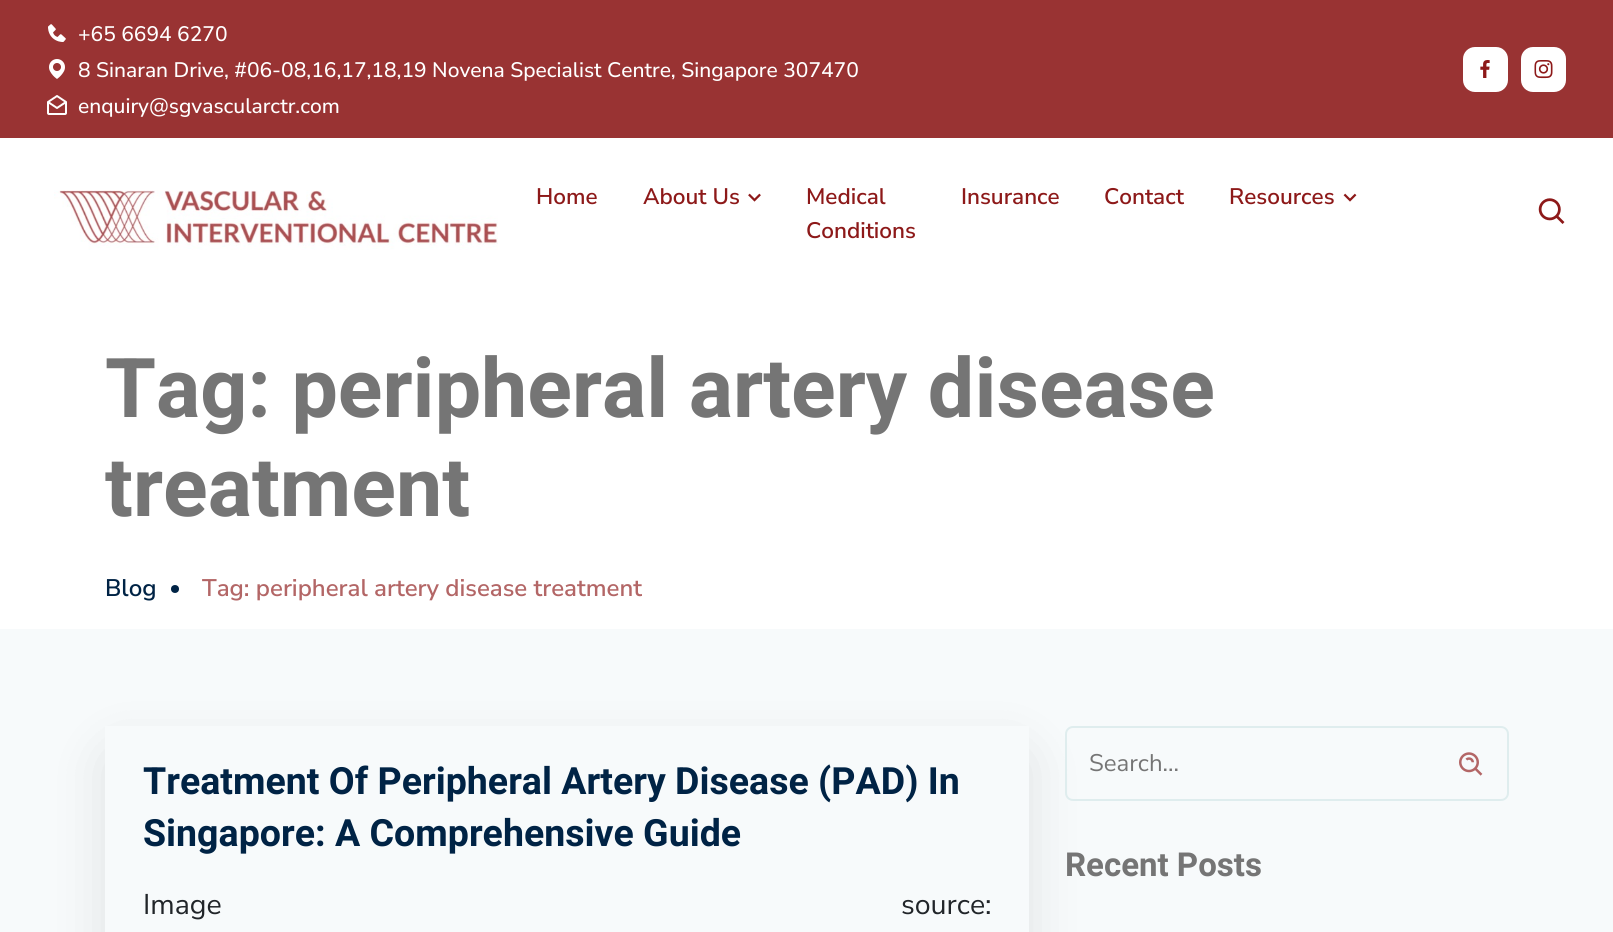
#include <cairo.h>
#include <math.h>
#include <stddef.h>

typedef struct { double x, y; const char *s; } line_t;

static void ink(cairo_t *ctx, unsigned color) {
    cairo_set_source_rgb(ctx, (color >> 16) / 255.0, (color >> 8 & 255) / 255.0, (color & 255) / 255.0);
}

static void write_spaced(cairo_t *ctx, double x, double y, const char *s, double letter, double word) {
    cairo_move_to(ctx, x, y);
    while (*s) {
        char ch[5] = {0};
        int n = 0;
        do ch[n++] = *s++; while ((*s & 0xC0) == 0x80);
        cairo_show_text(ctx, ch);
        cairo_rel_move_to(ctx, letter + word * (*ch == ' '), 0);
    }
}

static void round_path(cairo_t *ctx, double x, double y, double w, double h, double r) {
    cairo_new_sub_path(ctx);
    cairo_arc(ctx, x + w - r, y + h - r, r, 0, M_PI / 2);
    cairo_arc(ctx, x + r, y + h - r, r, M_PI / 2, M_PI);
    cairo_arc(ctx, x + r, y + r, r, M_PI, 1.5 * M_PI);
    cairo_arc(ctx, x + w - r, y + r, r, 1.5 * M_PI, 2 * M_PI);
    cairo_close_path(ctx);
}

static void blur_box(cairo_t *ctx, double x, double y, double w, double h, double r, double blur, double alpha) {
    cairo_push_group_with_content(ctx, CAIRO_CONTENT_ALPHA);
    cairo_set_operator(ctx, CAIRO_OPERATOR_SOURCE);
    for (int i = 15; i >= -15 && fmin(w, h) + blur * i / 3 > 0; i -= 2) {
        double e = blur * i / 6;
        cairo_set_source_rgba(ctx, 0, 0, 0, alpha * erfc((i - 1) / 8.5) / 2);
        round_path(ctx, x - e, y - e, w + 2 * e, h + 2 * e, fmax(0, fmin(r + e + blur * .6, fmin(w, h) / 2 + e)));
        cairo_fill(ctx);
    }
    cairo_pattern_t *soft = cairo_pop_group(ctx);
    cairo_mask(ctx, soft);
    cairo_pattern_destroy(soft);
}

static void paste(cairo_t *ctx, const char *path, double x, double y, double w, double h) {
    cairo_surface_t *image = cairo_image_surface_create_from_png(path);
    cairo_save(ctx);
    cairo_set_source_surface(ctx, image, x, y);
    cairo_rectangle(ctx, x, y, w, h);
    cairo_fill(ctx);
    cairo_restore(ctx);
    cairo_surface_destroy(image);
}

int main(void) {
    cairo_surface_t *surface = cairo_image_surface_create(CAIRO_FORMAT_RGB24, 1613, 932);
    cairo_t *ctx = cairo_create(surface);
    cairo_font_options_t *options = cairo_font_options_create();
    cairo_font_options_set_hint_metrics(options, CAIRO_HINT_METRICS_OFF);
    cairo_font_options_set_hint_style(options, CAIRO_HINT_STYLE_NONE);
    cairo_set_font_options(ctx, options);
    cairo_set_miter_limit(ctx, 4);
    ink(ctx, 0xFFFFFF);
    cairo_paint(ctx);
    ink(ctx, 0x993333);
    cairo_rectangle(ctx, 0, 0, 1613, 138);
    cairo_fill(ctx);
    paste(ctx, "media/1.png", 48, 24, 18, 18);
    cairo_select_font_face(ctx, "Nunito Sans Medium", CAIRO_FONT_SLANT_NORMAL, CAIRO_FONT_WEIGHT_NORMAL);
    cairo_set_font_size(ctx, 21);
    ink(ctx, 0xFFFFFF);
    cairo_move_to(ctx, 78, 41);
    cairo_show_text(ctx, "+65 6694 6270");
    paste(ctx, "media/2.png", 49, 59, 16, 20);
    cairo_move_to(ctx, 78, 77);
    cairo_show_text(ctx, "8 Sinaran Drive, #06-08,16,17,18,19 Novena Specialist Centre, Singapore 307470");
    paste(ctx, "media/3.png", 47, 95, 20, 20);
    cairo_move_to(ctx, 78, 113);
    cairo_show_text(ctx, "enquiry@sgvascularctr.com");
    round_path(ctx, 1463, 47, 45, 45, 12);
    cairo_fill(ctx);
    paste(ctx, "media/4.png", 1480, 60, 10, 18);
    round_path(ctx, 1521, 47, 45, 45, 12);
    cairo_fill(ctx);
    paste(ctx, "media/5.png", 1534, 60, 19, 19);
    paste(ctx, "media/6.png", 54, 190, 444, 60);
    cairo_select_font_face(ctx, "Nunito Sans SemiBold", CAIRO_FONT_SLANT_NORMAL, CAIRO_FONT_WEIGHT_NORMAL);
    cairo_set_font_size(ctx, 22.5);
    ink(ctx, 0x8D1919);
    cairo_move_to(ctx, 536, 204);
    cairo_show_text(ctx, "Home");
    cairo_move_to(ctx, 643, 204);
    cairo_show_text(ctx, "About Us");
    paste(ctx, "media/7.png", 748, 193, 13, 9);
    {
        static const line_t items[] = {
            {806, 204, "Medical"},
            {806, 238, "Conditions"},
            {961, 204, "Insurance"},
            {1104, 204, "Contact"},
            {1229, 204, "Resources"},
        };
        for (size_t i = 0; i < sizeof items / sizeof *items; i++) {
            cairo_move_to(ctx, items[i].x, items[i].y);
            cairo_show_text(ctx, items[i].s);
        }
    }
    paste(ctx, "media/8.png", 1343, 193, 14, 9);
    paste(ctx, "media/9.png", 1538, 198, 27, 26);
    cairo_select_font_face(ctx, "Heebo", CAIRO_FONT_SLANT_NORMAL, CAIRO_FONT_WEIGHT_BOLD);
    cairo_set_font_size(ctx, 82.5);
    ink(ctx, 0x757575);
    cairo_move_to(ctx, 105, 417);
    cairo_show_text(ctx, "Tag: peripheral artery disease");
    cairo_move_to(ctx, 105, 516);
    cairo_show_text(ctx, "treatment");
    cairo_select_font_face(ctx, "Nunito Sans SemiBold", CAIRO_FONT_SLANT_NORMAL, CAIRO_FONT_WEIGHT_NORMAL);
    cairo_set_font_size(ctx, 24);
    ink(ctx, 0x002345);
    cairo_move_to(ctx, 105, 596);
    cairo_show_text(ctx, "Blog");
    cairo_new_path(ctx);
    cairo_arc(ctx, 175, 589, 4, 0, 2 * M_PI);
    cairo_fill(ctx);
    ink(ctx, 0xB36666);
    cairo_move_to(ctx, 202, 596);
    cairo_show_text(ctx, "Tag: peripheral artery disease treatment");
    ink(ctx, 0xF7FAFB);
    cairo_rectangle(ctx, 0, 629, 1613, 303);
    cairo_fill(ctx);
    cairo_save(ctx);
    cairo_set_fill_rule(ctx, CAIRO_FILL_RULE_EVEN_ODD);
    cairo_new_path(ctx);
    cairo_move_to(ctx, 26, 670);
    cairo_line_to(ctx, 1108, 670);
    cairo_line_to(ctx, 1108, 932);
    cairo_line_to(ctx, 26, 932);
    cairo_close_path(ctx);
    cairo_move_to(ctx, 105, 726);
    cairo_line_to(ctx, 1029, 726);
    cairo_line_to(ctx, 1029, 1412);
    cairo_curve_to(ctx, 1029, 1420.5, 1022.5, 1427, 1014, 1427);
    cairo_line_to(ctx, 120, 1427);
    cairo_curve_to(ctx, 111.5, 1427, 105, 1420.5, 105, 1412);
    cairo_close_path(ctx);
    cairo_clip(ctx);
    ink(ctx, 0x000000);
    blur_box(ctx, 105, 749, 924, 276, 15, 26, 0.1);
    cairo_restore(ctx);
    cairo_select_font_face(ctx, "Heebo", CAIRO_FONT_SLANT_NORMAL, CAIRO_FONT_WEIGHT_BOLD);
    cairo_set_font_size(ctx, 37.5);
    ink(ctx, 0x002345);
    cairo_move_to(ctx, 143, 794);
    cairo_show_text(ctx, "Treatment Of Peripheral Artery Disease (PAD) In");
    cairo_move_to(ctx, 143, 846);
    cairo_show_text(ctx, "Singapore: A Comprehensive Guide");
    cairo_select_font_face(ctx, "Nunito Sans", CAIRO_FONT_SLANT_NORMAL, CAIRO_FONT_WEIGHT_NORMAL);
    cairo_set_font_size(ctx, 28.5);
    ink(ctx, 0x212529);
    write_spaced(ctx, 143, 914, "Image source:", 0, 672);
    round_path(ctx, 1066, 727, 442, 73, 7);
    ink(ctx, 0xDFEDEE);
    cairo_stroke(ctx);
    cairo_set_font_size(ctx, 24);
    ink(ctx, 0x757575);
    cairo_move_to(ctx, 1089, 771);
    cairo_show_text(ctx, "Search...");
    paste(ctx, "media/10.png", 1459, 752, 24, 24);
    cairo_select_font_face(ctx, "Heebo", CAIRO_FONT_SLANT_NORMAL, CAIRO_FONT_WEIGHT_BOLD);
    cairo_set_font_size(ctx, 33);
    cairo_move_to(ctx, 1065, 876);
    cairo_show_text(ctx, "Recent Posts");
    cairo_surface_write_to_png(surface, "image.png");
    cairo_font_options_destroy(options);
    cairo_destroy(ctx);
    cairo_surface_destroy(surface);
    return 0;
}
